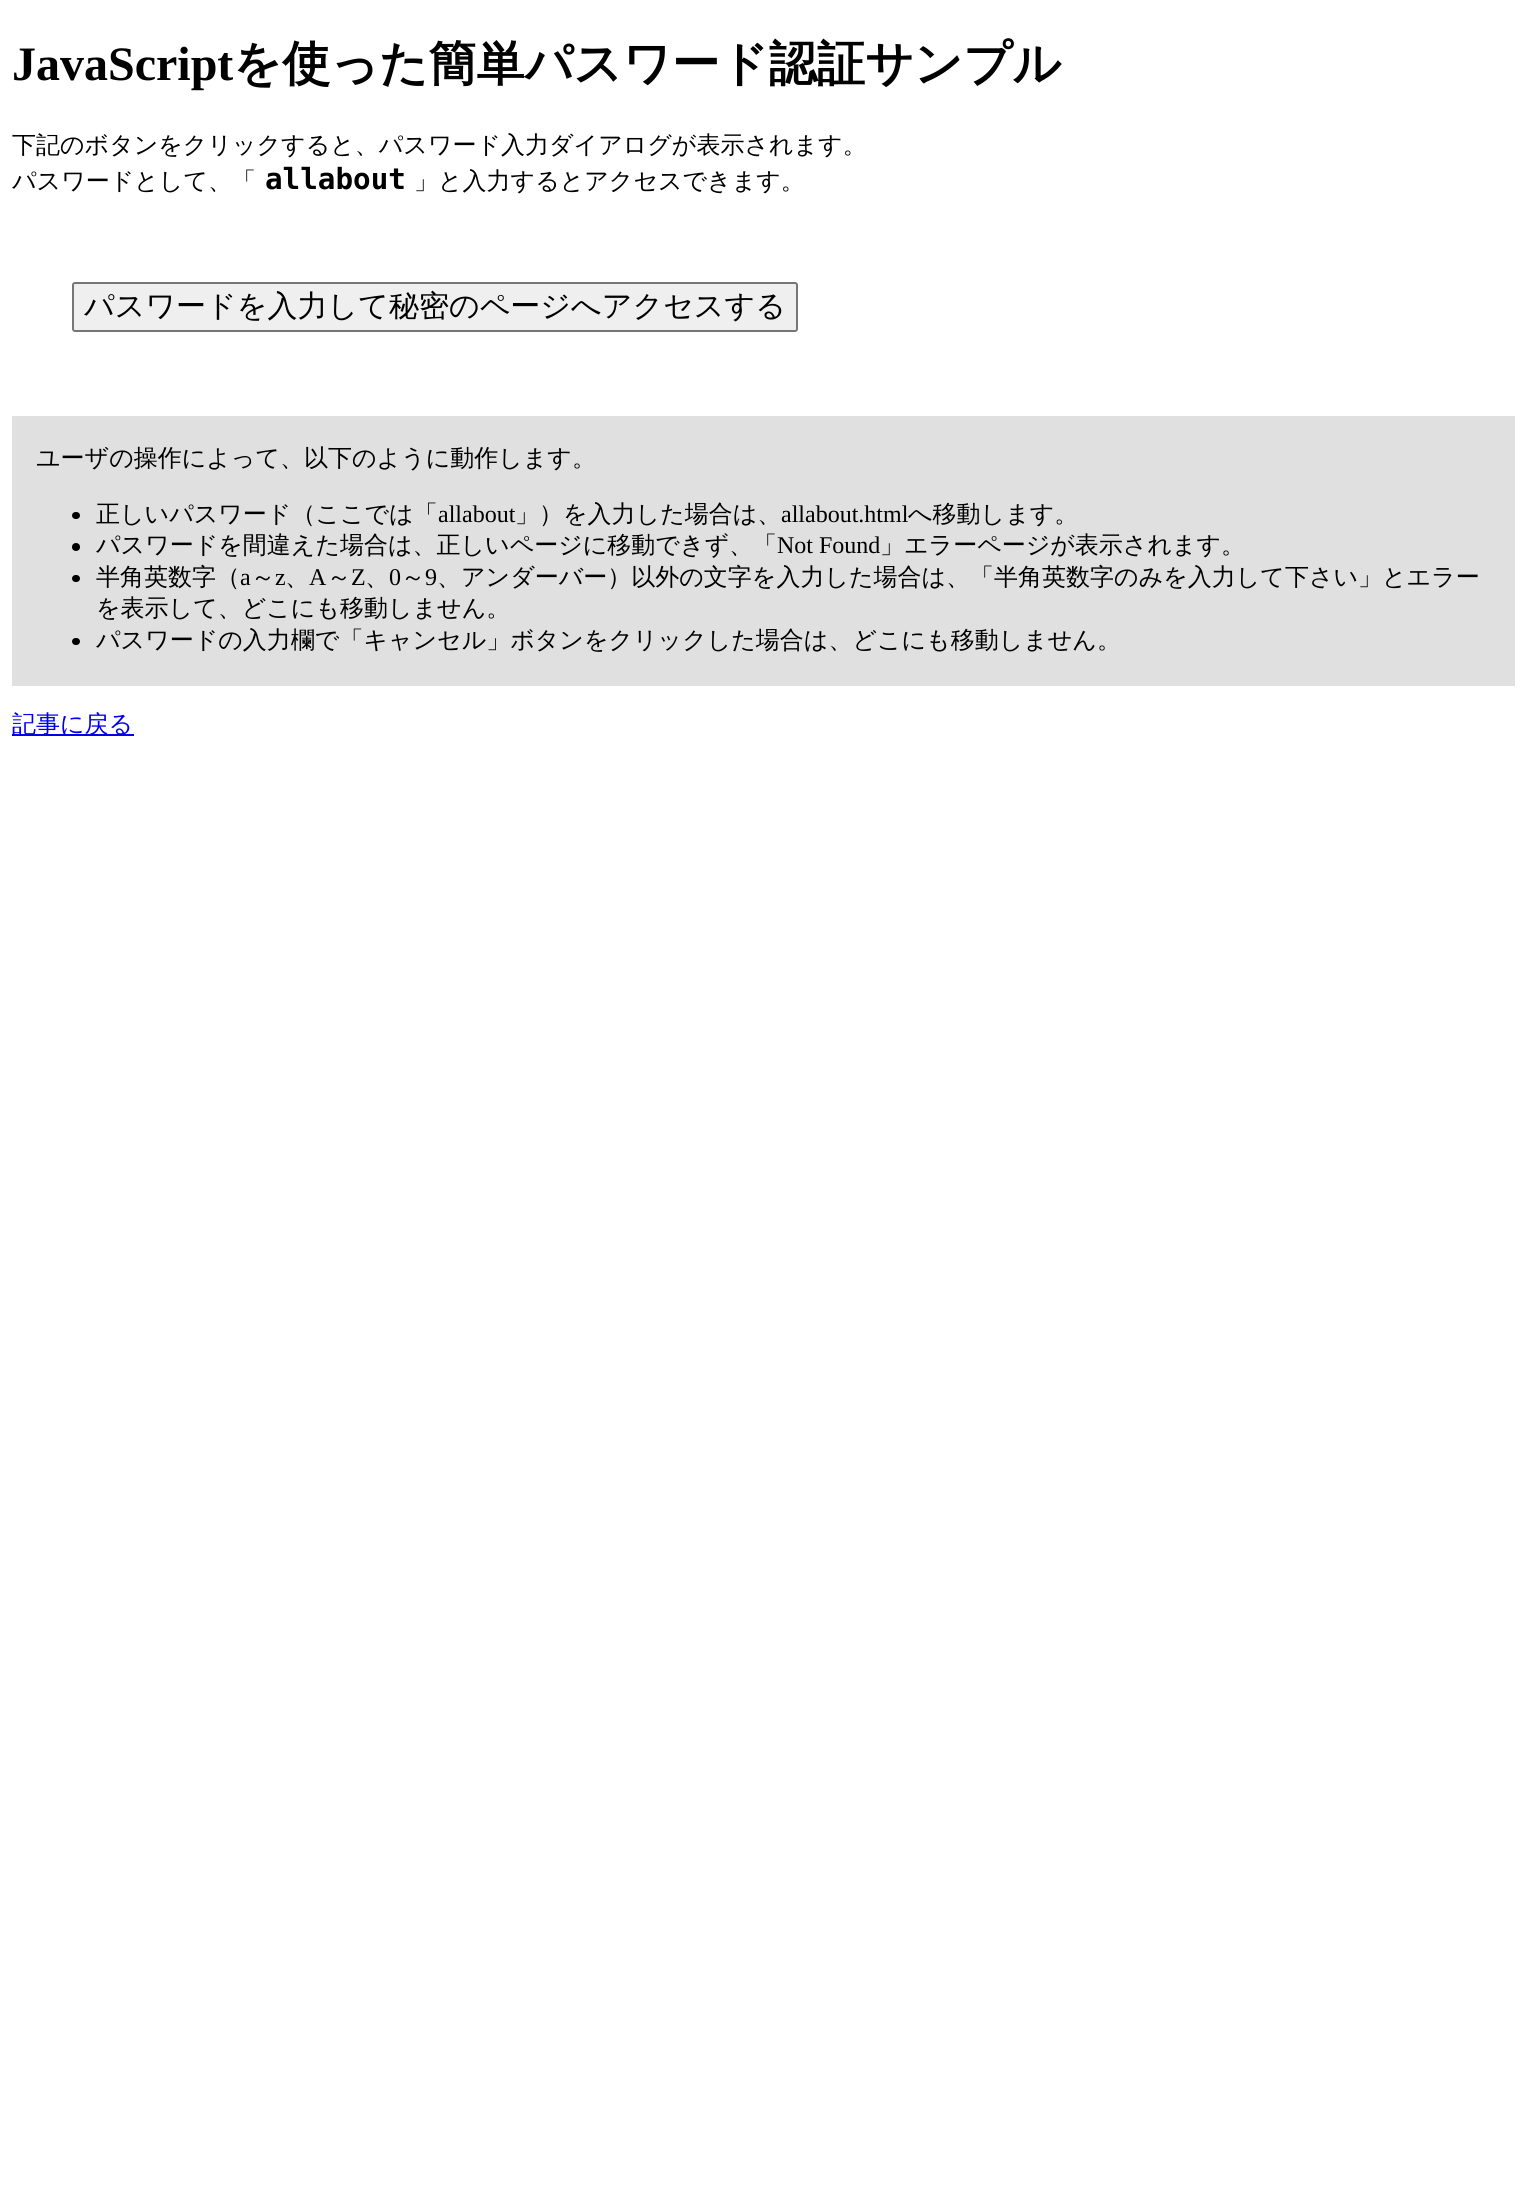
#include <cairo.h>
#include <math.h>
#include <stddef.h>

typedef struct { double x, y; const char *s; } line_t;

static void ink(cairo_t *ctx, unsigned color) {
    cairo_set_source_rgb(ctx, (color >> 16) / 255.0, (color >> 8 & 255) / 255.0, (color & 255) / 255.0);
}

static void round_path(cairo_t *ctx, double x, double y, double w, double h, double r) {
    cairo_new_sub_path(ctx);
    cairo_arc(ctx, x + w - r, y + h - r, r, 0, M_PI / 2);
    cairo_arc(ctx, x + r, y + h - r, r, M_PI / 2, M_PI);
    cairo_arc(ctx, x + r, y + r, r, M_PI, 1.5 * M_PI);
    cairo_arc(ctx, x + w - r, y + r, r, 1.5 * M_PI, 2 * M_PI);
    cairo_close_path(ctx);
}

int main(void) {
    cairo_surface_t *surface = cairo_image_surface_create(CAIRO_FORMAT_RGB24, 1527, 2207);
    cairo_t *ctx = cairo_create(surface);
    cairo_font_options_t *options = cairo_font_options_create();
    cairo_font_options_set_hint_metrics(options, CAIRO_HINT_METRICS_OFF);
    cairo_font_options_set_hint_style(options, CAIRO_HINT_STYLE_NONE);
    cairo_set_font_options(ctx, options);
    cairo_set_miter_limit(ctx, 4);
    ink(ctx, 0xFFFFFF);
    cairo_paint(ctx);
    cairo_select_font_face(ctx, "Liberation Serif", CAIRO_FONT_SLANT_NORMAL, CAIRO_FONT_WEIGHT_BOLD);
    cairo_set_font_size(ctx, 48);
    ink(ctx, 0x000000);
    cairo_move_to(ctx, 12, 80);
    cairo_show_text(ctx, "JavaScript");
    cairo_select_font_face(ctx, "WenQuanYi Zen Hei", CAIRO_FONT_SLANT_NORMAL, CAIRO_FONT_WEIGHT_BOLD);
    cairo_move_to(ctx, 233, 80);
    cairo_show_text(ctx, "を使った簡単パスワード認証サンプル");
    cairo_select_font_face(ctx, "WenQuanYi Zen Hei Medium", CAIRO_FONT_SLANT_NORMAL, CAIRO_FONT_WEIGHT_NORMAL);
    cairo_set_font_size(ctx, 24);
    cairo_move_to(ctx, 12, 153);
    cairo_show_text(ctx, "下記のボタンをクリックすると、パスワード入力ダイアログが表示されます。");
    cairo_move_to(ctx, 12, 189);
    cairo_show_text(ctx, "パスワードとして、「");
    cairo_select_font_face(ctx, "DejaVu Sans Mono", CAIRO_FONT_SLANT_NORMAL, CAIRO_FONT_WEIGHT_BOLD);
    cairo_set_font_size(ctx, 29.25);
    cairo_move_to(ctx, 265, 189);
    cairo_show_text(ctx, "allabout");
    cairo_select_font_face(ctx, "WenQuanYi Zen Hei Medium", CAIRO_FONT_SLANT_NORMAL, CAIRO_FONT_WEIGHT_NORMAL);
    cairo_set_font_size(ctx, 24);
    cairo_move_to(ctx, 414, 189);
    cairo_show_text(ctx, "」と入力するとアクセスできます。");
    ink(ctx, 0xEFEFEF);
    round_path(ctx, 73, 283, 724, 48, 2);
    cairo_fill_preserve(ctx);
    ink(ctx, 0x767676);
    cairo_stroke(ctx);
    cairo_set_font_size(ctx, 30);
    ink(ctx, 0x000000);
    cairo_move_to(ctx, 84, 316);
    cairo_show_text(ctx, "パスワードを入力して秘密のページへアクセスする");
    ink(ctx, 0xE0E0E0);
    cairo_rectangle(ctx, 12, 416, 1503, 270);
    cairo_fill(ctx);
    cairo_set_font_size(ctx, 24);
    ink(ctx, 0x000000);
    cairo_move_to(ctx, 36, 466);
    cairo_show_text(ctx, "ユーザの操作によって、以下のように動作します。");
    round_path(ctx, 72, 512, 8, 7, 3.5);
    cairo_fill(ctx);
    cairo_move_to(ctx, 96, 522);
    cairo_show_text(ctx, "正しいパスワード（ここでは「");
    cairo_select_font_face(ctx, "Liberation Serif", CAIRO_FONT_SLANT_NORMAL, CAIRO_FONT_WEIGHT_NORMAL);
    cairo_move_to(ctx, 438, 522);
    cairo_show_text(ctx, "allabout");
    cairo_select_font_face(ctx, "WenQuanYi Zen Hei Medium", CAIRO_FONT_SLANT_NORMAL, CAIRO_FONT_WEIGHT_NORMAL);
    cairo_move_to(ctx, 515, 522);
    cairo_show_text(ctx, "」）を入力した場合は、");
    cairo_select_font_face(ctx, "Liberation Serif", CAIRO_FONT_SLANT_NORMAL, CAIRO_FONT_WEIGHT_NORMAL);
    cairo_move_to(ctx, 781, 522);
    cairo_show_text(ctx, "allabout.html");
    cairo_select_font_face(ctx, "WenQuanYi Zen Hei Medium", CAIRO_FONT_SLANT_NORMAL, CAIRO_FONT_WEIGHT_NORMAL);
    cairo_move_to(ctx, 908, 522);
    cairo_show_text(ctx, "へ移動します。");
    cairo_new_path(ctx);
    cairo_arc(ctx, 76, 547, 4, 0, 2 * M_PI);
    cairo_fill(ctx);
    cairo_move_to(ctx, 96, 553);
    cairo_show_text(ctx, "パスワードを間違えた場合は、正しいページに移動できず、「");
    cairo_select_font_face(ctx, "Liberation Serif", CAIRO_FONT_SLANT_NORMAL, CAIRO_FONT_WEIGHT_NORMAL);
    cairo_move_to(ctx, 777, 553);
    cairo_show_text(ctx, "Not Found");
    cairo_select_font_face(ctx, "WenQuanYi Zen Hei Medium", CAIRO_FONT_SLANT_NORMAL, CAIRO_FONT_WEIGHT_NORMAL);
    cairo_move_to(ctx, 880, 553);
    cairo_show_text(ctx, "」エラーページが表示されます。");
    round_path(ctx, 72, 575, 8, 7, 3.5);
    cairo_fill(ctx);
    cairo_move_to(ctx, 96, 585);
    cairo_show_text(ctx, "半角英数字（");
    cairo_select_font_face(ctx, "Liberation Serif", CAIRO_FONT_SLANT_NORMAL, CAIRO_FONT_WEIGHT_NORMAL);
    cairo_move_to(ctx, 240, 585);
    cairo_show_text(ctx, "a");
    cairo_select_font_face(ctx, "WenQuanYi Zen Hei Medium", CAIRO_FONT_SLANT_NORMAL, CAIRO_FONT_WEIGHT_NORMAL);
    cairo_move_to(ctx, 251, 585);
    cairo_show_text(ctx, "～");
    cairo_select_font_face(ctx, "Liberation Serif", CAIRO_FONT_SLANT_NORMAL, CAIRO_FONT_WEIGHT_NORMAL);
    cairo_move_to(ctx, 275, 585);
    cairo_show_text(ctx, "z");
    cairo_move_to(ctx, 309, 585);
    cairo_show_text(ctx, "A");
    cairo_select_font_face(ctx, "WenQuanYi Zen Hei Medium", CAIRO_FONT_SLANT_NORMAL, CAIRO_FONT_WEIGHT_NORMAL);
    cairo_move_to(ctx, 327, 585);
    cairo_show_text(ctx, "～");
    cairo_select_font_face(ctx, "Liberation Serif", CAIRO_FONT_SLANT_NORMAL, CAIRO_FONT_WEIGHT_NORMAL);
    cairo_move_to(ctx, 351, 585);
    cairo_show_text(ctx, "Z");
    cairo_move_to(ctx, 389, 585);
    cairo_show_text(ctx, "0");
    cairo_select_font_face(ctx, "WenQuanYi Zen Hei Medium", CAIRO_FONT_SLANT_NORMAL, CAIRO_FONT_WEIGHT_NORMAL);
    cairo_move_to(ctx, 401, 585);
    cairo_show_text(ctx, "～");
    cairo_select_font_face(ctx, "Liberation Serif", CAIRO_FONT_SLANT_NORMAL, CAIRO_FONT_WEIGHT_NORMAL);
    cairo_move_to(ctx, 425, 585);
    cairo_show_text(ctx, "9");
    cairo_select_font_face(ctx, "WenQuanYi Zen Hei Medium", CAIRO_FONT_SLANT_NORMAL, CAIRO_FONT_WEIGHT_NORMAL);
    {
        static const line_t items[] = {
            {437, 585, "、アンダーバー）以外の文字を入力した場合は、「半角英数字のみを入力して下さい」とエラー"},
            {285, 585, "、"},
            {365, 585, "、"},
            {96, 616, "を表示して、どこにも移動しません。"},
        };
        for (size_t i = 0; i < sizeof items / sizeof *items; i++) {
            cairo_move_to(ctx, items[i].x, items[i].y);
            cairo_show_text(ctx, items[i].s);
        }
    }
    round_path(ctx, 72, 638, 8, 7, 3.5);
    cairo_fill(ctx);
    cairo_move_to(ctx, 96, 648);
    cairo_show_text(ctx, "パスワードの入力欄で「キャンセル」ボタンをクリックした場合は、どこにも移動しません。");
    ink(ctx, 0x0000EE);
    cairo_rectangle(ctx, 12, 734, 122, 2);
    cairo_fill(ctx);
    cairo_move_to(ctx, 12, 732);
    cairo_show_text(ctx, "記事に戻る");
    cairo_surface_write_to_png(surface, "image.png");
    cairo_font_options_destroy(options);
    cairo_destroy(ctx);
    cairo_surface_destroy(surface);
    return 0;
}
